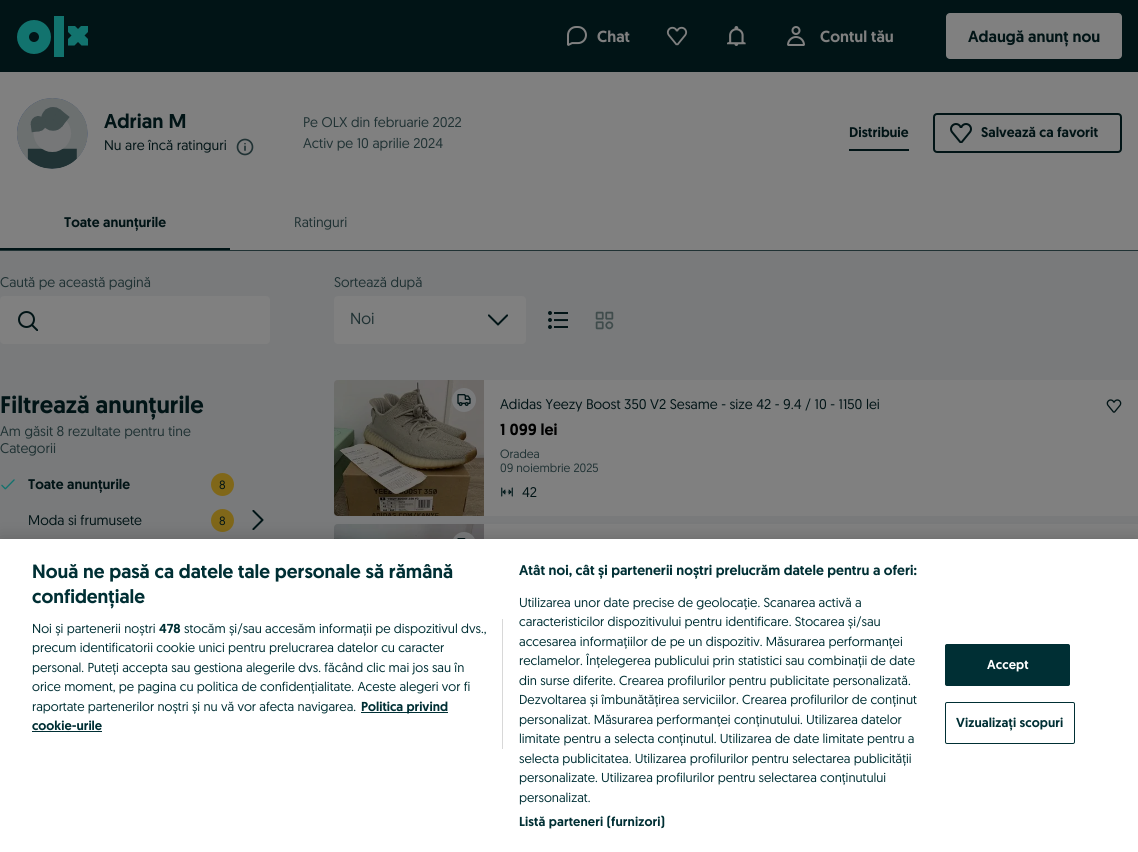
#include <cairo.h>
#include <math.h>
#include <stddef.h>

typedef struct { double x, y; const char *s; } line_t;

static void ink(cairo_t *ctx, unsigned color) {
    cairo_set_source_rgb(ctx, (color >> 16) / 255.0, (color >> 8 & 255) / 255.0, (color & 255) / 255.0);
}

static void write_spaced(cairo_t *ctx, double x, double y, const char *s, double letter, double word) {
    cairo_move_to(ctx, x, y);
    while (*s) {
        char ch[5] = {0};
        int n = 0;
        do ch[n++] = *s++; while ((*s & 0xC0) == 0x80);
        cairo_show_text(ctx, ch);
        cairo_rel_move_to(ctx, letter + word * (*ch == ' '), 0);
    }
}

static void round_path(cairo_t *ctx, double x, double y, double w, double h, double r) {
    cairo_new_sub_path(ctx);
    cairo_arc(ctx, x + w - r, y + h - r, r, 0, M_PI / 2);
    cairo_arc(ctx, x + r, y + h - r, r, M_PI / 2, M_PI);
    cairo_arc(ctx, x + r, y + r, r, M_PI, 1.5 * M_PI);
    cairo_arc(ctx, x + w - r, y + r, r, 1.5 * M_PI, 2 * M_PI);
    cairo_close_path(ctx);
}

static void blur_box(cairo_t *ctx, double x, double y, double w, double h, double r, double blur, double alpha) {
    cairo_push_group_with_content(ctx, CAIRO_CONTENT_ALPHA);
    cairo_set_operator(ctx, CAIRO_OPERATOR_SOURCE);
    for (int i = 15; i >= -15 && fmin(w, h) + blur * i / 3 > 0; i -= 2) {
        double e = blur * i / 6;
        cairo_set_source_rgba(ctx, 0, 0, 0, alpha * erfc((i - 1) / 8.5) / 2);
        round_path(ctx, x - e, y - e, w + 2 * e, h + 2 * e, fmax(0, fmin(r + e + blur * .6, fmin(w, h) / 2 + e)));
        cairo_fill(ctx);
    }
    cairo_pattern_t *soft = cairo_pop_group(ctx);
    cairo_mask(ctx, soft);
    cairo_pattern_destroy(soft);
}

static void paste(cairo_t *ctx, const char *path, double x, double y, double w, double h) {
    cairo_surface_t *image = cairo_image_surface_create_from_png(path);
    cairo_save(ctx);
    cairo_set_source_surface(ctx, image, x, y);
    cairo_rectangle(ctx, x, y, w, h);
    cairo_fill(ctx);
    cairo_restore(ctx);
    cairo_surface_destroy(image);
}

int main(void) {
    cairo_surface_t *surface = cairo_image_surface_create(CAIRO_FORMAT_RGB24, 1138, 852);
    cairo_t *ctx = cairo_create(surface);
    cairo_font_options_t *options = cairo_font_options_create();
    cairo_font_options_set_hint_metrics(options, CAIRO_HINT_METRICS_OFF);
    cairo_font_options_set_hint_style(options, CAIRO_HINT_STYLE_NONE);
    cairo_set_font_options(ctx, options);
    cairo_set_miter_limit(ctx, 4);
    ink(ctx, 0x797A7B);
    cairo_paint(ctx);
    ink(ctx, 0x011416);
    cairo_rectangle(ctx, 0, 0, 1138, 72);
    cairo_fill(ctx);
    cairo_arc(ctx, 34, 37, 11, 0, 2 * M_PI);
    ink(ctx, 0x12736E);
    cairo_set_line_width(ctx, 12);
    cairo_stroke(ctx);
    cairo_rectangle(ctx, 54, 16, 10, 41);
    cairo_fill(ctx);
    cairo_save(ctx);
    cairo_rectangle(ctx, 68, 26, 20, 20);
    cairo_clip(ctx);
    cairo_new_path(ctx);
    cairo_move_to(ctx, 61.5, 25.5);
    cairo_line_to(ctx, 74.5, 25.5);
    cairo_line_to(ctx, 94.5, 45.5);
    cairo_line_to(ctx, 81.5, 45.5);
    cairo_close_path(ctx);
    cairo_fill(ctx);
    cairo_new_path(ctx);
    cairo_move_to(ctx, 81.5, 25.5);
    cairo_line_to(ctx, 94.5, 25.5);
    cairo_line_to(ctx, 74.5, 45.5);
    cairo_line_to(ctx, 61.5, 45.5);
    cairo_close_path(ctx);
    cairo_fill(ctx);
    cairo_restore(ctx);
    paste(ctx, "media/1.png", 567, 26, 20, 20);
    cairo_select_font_face(ctx, "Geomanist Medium", CAIRO_FONT_SLANT_NORMAL, CAIRO_FONT_WEIGHT_NORMAL);
    cairo_set_font_size(ctx, 16);
    ink(ctx, 0x808080);
    cairo_move_to(ctx, 597, 42);
    cairo_show_text(ctx, "Chat");
    paste(ctx, "media/2.png", 666, 26, 22, 20);
    paste(ctx, "media/3.png", 727, 26, 19, 20);
    paste(ctx, "media/4.png", 787, 26, 18, 20);
    cairo_move_to(ctx, 820, 42);
    cairo_show_text(ctx, "Contul tău");
    round_path(ctx, 946, 13, 176, 46, 4);
    cairo_fill(ctx);
    ink(ctx, 0x011416);
    cairo_move_to(ctx, 968, 42);
    cairo_show_text(ctx, "Adaugă anunț nou");
    ink(ctx, 0x808080);
    cairo_rectangle(ctx, 0, 72, 1138, 178);
    cairo_fill(ctx);
    paste(ctx, "media/5.png", 17, 98, 71, 71);
    cairo_set_font_size(ctx, 20);
    ink(ctx, 0x011416);
    cairo_move_to(ctx, 104, 128);
    cairo_show_text(ctx, "Adrian M");
    cairo_select_font_face(ctx, "Geomanist", CAIRO_FONT_SLANT_NORMAL, CAIRO_FONT_WEIGHT_NORMAL);
    cairo_set_font_size(ctx, 14);
    cairo_move_to(ctx, 104, 150);
    cairo_show_text(ctx, "Nu are încă ratinguri");
    paste(ctx, "media/6.png", 236, 138, 18, 18);
    ink(ctx, 0x203234);
    cairo_move_to(ctx, 303, 127);
    cairo_show_text(ctx, "Pe OLX din februarie 2022");
    cairo_move_to(ctx, 303, 148);
    cairo_show_text(ctx, "Activ pe 10 aprilie 2024");
    cairo_select_font_face(ctx, "Geomanist Medium", CAIRO_FONT_SLANT_NORMAL, CAIRO_FONT_WEIGHT_NORMAL);
    ink(ctx, 0x011416);
    cairo_move_to(ctx, 849, 137);
    cairo_show_text(ctx, "Distribuie");
    cairo_rectangle(ctx, 849, 149, 60, 2);
    cairo_fill(ctx);
    round_path(ctx, 934, 114, 187, 38, 3);
    cairo_set_line_width(ctx, 2);
    cairo_stroke(ctx);
    paste(ctx, "media/7.png", 950, 123, 22, 20);
    cairo_move_to(ctx, 981, 137);
    cairo_show_text(ctx, "Salvează ca favorit");
    ink(ctx, 0x203234);
    cairo_rectangle(ctx, 0, 250, 1138, 1);
    cairo_fill(ctx);
    ink(ctx, 0x011416);
    cairo_rectangle(ctx, 0, 248, 230, 2);
    cairo_fill(ctx);
    cairo_move_to(ctx, 64, 227);
    cairo_show_text(ctx, "Toate anunțurile");
    cairo_select_font_face(ctx, "Geomanist", CAIRO_FONT_SLANT_NORMAL, CAIRO_FONT_WEIGHT_NORMAL);
    ink(ctx, 0x203234);
    cairo_move_to(ctx, 294, 227);
    cairo_show_text(ctx, "Ratinguri");
    cairo_move_to(ctx, 0, 287);
    cairo_show_text(ctx, "Caută pe această pagină");
    ink(ctx, 0x808080);
    round_path(ctx, 0, 296, 270, 48, 4);
    cairo_fill(ctx);
    paste(ctx, "media/8.png", 18, 311, 20, 20);
    cairo_select_font_face(ctx, "Geomanist Medium", CAIRO_FONT_SLANT_NORMAL, CAIRO_FONT_WEIGHT_NORMAL);
    cairo_set_font_size(ctx, 24);
    ink(ctx, 0x011416);
    cairo_move_to(ctx, 0, 413);
    cairo_show_text(ctx, "Filtrează anunțurile");
    cairo_select_font_face(ctx, "Geomanist", CAIRO_FONT_SLANT_NORMAL, CAIRO_FONT_WEIGHT_NORMAL);
    cairo_set_font_size(ctx, 14);
    ink(ctx, 0x203234);
    cairo_move_to(ctx, 0, 436);
    cairo_show_text(ctx, "Am găsit 8 rezultate pentru tine");
    cairo_move_to(ctx, 0, 453);
    cairo_show_text(ctx, "Categorii");
    paste(ctx, "media/9.png", 1, 479, 14, 11);
    cairo_select_font_face(ctx, "Geomanist Medium", CAIRO_FONT_SLANT_NORMAL, CAIRO_FONT_WEIGHT_NORMAL);
    ink(ctx, 0x011416);
    cairo_move_to(ctx, 28, 489);
    cairo_show_text(ctx, "Toate anunțurile");
    ink(ctx, 0x806719);
    cairo_new_path(ctx);
    cairo_arc(ctx, 222.5, 484.5, 11.5, 0, 2 * M_PI);
    cairo_fill(ctx);
    cairo_select_font_face(ctx, "Geomanist", CAIRO_FONT_SLANT_NORMAL, CAIRO_FONT_WEIGHT_NORMAL);
    cairo_set_font_size(ctx, 12);
    ink(ctx, 0x011416);
    cairo_move_to(ctx, 219, 489);
    cairo_show_text(ctx, "8");
    cairo_set_font_size(ctx, 14);
    cairo_move_to(ctx, 28, 525);
    cairo_show_text(ctx, "Moda si frumusete");
    ink(ctx, 0x806719);
    cairo_new_path(ctx);
    cairo_arc(ctx, 222.5, 520.5, 11.5, 0, 2 * M_PI);
    cairo_fill(ctx);
    cairo_set_font_size(ctx, 12);
    ink(ctx, 0x011416);
    cairo_move_to(ctx, 219, 525);
    cairo_show_text(ctx, "8");
    paste(ctx, "media/10.png", 252, 510, 12, 20);
    cairo_set_font_size(ctx, 14);
    ink(ctx, 0x203234);
    cairo_move_to(ctx, 334, 287);
    cairo_show_text(ctx, "Sortează după");
    ink(ctx, 0x808080);
    round_path(ctx, 334, 296, 192, 48, 4);
    cairo_fill(ctx);
    cairo_set_font_size(ctx, 16);
    ink(ctx, 0x203234);
    cairo_move_to(ctx, 350, 324);
    cairo_show_text(ctx, "Noi");
    paste(ctx, "media/11.png", 488, 314, 20, 12);
    paste(ctx, "media/12.png", 548, 311, 20, 18);
    paste(ctx, "media/13.png", 595, 311, 19, 19);
    paste(ctx, "media/14.png", 334, 380, 150, 136);
    ink(ctx, 0x797A7B);
    cairo_arc(ctx, 464, 400, 12, 0, 2 * M_PI);
    cairo_fill(ctx);
    paste(ctx, "media/15.png", 457, 394, 14, 12);
    ink(ctx, 0x808080);
    cairo_rectangle(ctx, 484, 380, 654, 136);
    cairo_fill(ctx);
    cairo_set_font_size(ctx, 14);
    ink(ctx, 0x011416);
    cairo_move_to(ctx, 500, 409);
    cairo_show_text(ctx, "Adidas Yeezy Boost 350 V2 Sesame - size 42 - 9.4 / 10 - 1150 lei");
    cairo_select_font_face(ctx, "Geomanist Medium", CAIRO_FONT_SLANT_NORMAL, CAIRO_FONT_WEIGHT_NORMAL);
    cairo_set_font_size(ctx, 16);
    ink(ctx, 0x000000);
    cairo_move_to(ctx, 500, 435);
    cairo_show_text(ctx, "1 099 lei");
    paste(ctx, "media/16.png", 1106, 399, 16, 14);
    cairo_select_font_face(ctx, "Geomanist", CAIRO_FONT_SLANT_NORMAL, CAIRO_FONT_WEIGHT_NORMAL);
    cairo_set_font_size(ctx, 12);
    ink(ctx, 0x203234);
    cairo_move_to(ctx, 500, 458);
    cairo_show_text(ctx, "Oradea");
    cairo_move_to(ctx, 500, 472);
    cairo_show_text(ctx, "09 noiembrie 2025");
    paste(ctx, "media/17.png", 501, 487, 12, 10);
    cairo_set_font_size(ctx, 14);
    ink(ctx, 0x011416);
    cairo_move_to(ctx, 522, 497);
    cairo_show_text(ctx, "42");
    paste(ctx, "media/18.png", 334, 524, 150, 15);
    ink(ctx, 0x797A7B);
    cairo_arc(ctx, 464, 544, 12, 0, 2 * M_PI);
    cairo_fill(ctx);
    paste(ctx, "media/19.png", 457, 538, 9, 1);
    ink(ctx, 0x808080);
    cairo_rectangle(ctx, 484, 524, 654, 15);
    cairo_fill(ctx);
    ink(ctx, 0x000000);
    blur_box(ctx, 0, 539, 1138, 313, 0, 9, 0.2);
    ink(ctx, 0xFFFFFF);
    cairo_rectangle(ctx, 0, 539, 1138, 313);
    cairo_fill(ctx);
    cairo_select_font_face(ctx, "Geomanist Medium", CAIRO_FONT_SLANT_NORMAL, CAIRO_FONT_WEIGHT_NORMAL);
    cairo_set_font_size(ctx, 19.2);
    ink(ctx, 0x002F34);
    cairo_move_to(ctx, 32, 578);
    cairo_show_text(ctx, "Nouă ne pasă ca datele tale personale să rămână");
    cairo_move_to(ctx, 32, 603);
    cairo_show_text(ctx, "confidențiale");
    cairo_set_font_size(ctx, 14.1);
    cairo_move_to(ctx, 519, 575);
    cairo_show_text(ctx, "Atât noi, cât și partenerii noștri prelucrăm datele pentru a oferi:");
    cairo_select_font_face(ctx, "Geomanist", CAIRO_FONT_SLANT_NORMAL, CAIRO_FONT_WEIGHT_NORMAL);
    cairo_set_font_size(ctx, 13);
    {
        static const line_t items[] = {
            {519, 607, "Utilizarea unor date precise de geolocație. Scanarea activă a"},
            {519, 626, "caracteristicilor dispozitivului pentru identificare. Stocarea și/sau"},
            {519, 646, "accesarea informațiilor de pe un dispozitiv. Măsurarea performanței"},
            {519, 665, "reclamelor. Înțelegerea publicului prin statistici sau combinații de date"},
            {519, 685, "din surse diferite. Crearea profilurilor pentru publicitate personalizată."},
            {519, 704, "Dezvoltarea și îmbunătățirea serviciilor. Crearea profilurilor de conținut"},
            {519, 724, "personalizat. Măsurarea performanței conținutului. Utilizarea datelor"},
            {519, 743, "limitate pentru a selecta conținutul. Utilizarea de date limitate pentru a"},
            {519, 763, "selecta publicitatea. Utilizarea profilurilor pentru selectarea publicității"},
            {519, 782, "personalizate. Utilizarea profilurilor pentru selectarea conținutului"},
            {519, 802, "personalizat."},
        };
        for (size_t i = 0; i < sizeof items / sizeof *items; i++) {
            cairo_move_to(ctx, items[i].x, items[i].y);
            cairo_show_text(ctx, items[i].s);
        }
    }
    cairo_select_font_face(ctx, "Geomanist Medium", CAIRO_FONT_SLANT_NORMAL, CAIRO_FONT_WEIGHT_NORMAL);
    write_spaced(ctx, 519, 826, "Listă parteneri (furnizori)", 0.1, 0);
    ink(ctx, 0xD8D8D8);
    cairo_rectangle(ctx, 502, 619, 1, 130);
    cairo_fill(ctx);
    cairo_select_font_face(ctx, "Geomanist", CAIRO_FONT_SLANT_NORMAL, CAIRO_FONT_WEIGHT_NORMAL);
    ink(ctx, 0x002F34);
    cairo_move_to(ctx, 32, 633);
    cairo_show_text(ctx, "Noi și partenerii noștri");
    cairo_select_font_face(ctx, "Geomanist Medium", CAIRO_FONT_SLANT_NORMAL, CAIRO_FONT_WEIGHT_NORMAL);
    cairo_move_to(ctx, 159, 633);
    cairo_show_text(ctx, "478");
    cairo_select_font_face(ctx, "Geomanist", CAIRO_FONT_SLANT_NORMAL, CAIRO_FONT_WEIGHT_NORMAL);
    {
        static const line_t items[] = {
            {184, 633, "stocăm și/sau accesăm informații pe dispozitivul dvs.,"},
            {32, 652, "precum identificatorii cookie unici pentru prelucrarea datelor cu caracter"},
            {32, 672, "personal. Puteți accepta sau gestiona alegerile dvs. făcând clic mai jos sau în"},
            {32, 691, "orice moment, pe pagina cu politica de confidențialitate. Aceste alegeri vor fi"},
            {32, 711, "raportate partenerilor noștri și nu vă vor afecta navigarea."},
        };
        for (size_t i = 0; i < sizeof items / sizeof *items; i++) {
            cairo_move_to(ctx, items[i].x, items[i].y);
            cairo_show_text(ctx, items[i].s);
        }
    }
    cairo_rectangle(ctx, 361, 712, 87, 1);
    cairo_fill(ctx);
    cairo_select_font_face(ctx, "Geomanist Medium", CAIRO_FONT_SLANT_NORMAL, CAIRO_FONT_WEIGHT_NORMAL);
    cairo_move_to(ctx, 361, 711);
    cairo_show_text(ctx, "Politica privind");
    cairo_move_to(ctx, 32, 730);
    cairo_show_text(ctx, "cookie-urile");
    cairo_rectangle(ctx, 32, 731, 70, 1);
    cairo_fill(ctx);
    round_path(ctx, 945.5, 644.5, 124, 41, 1.5);
    cairo_fill_preserve(ctx);
    cairo_set_line_width(ctx, 1);
    cairo_stroke(ctx);
    ink(ctx, 0xFFFFFF);
    write_spaced(ctx, 987, 669, "Accept", 0.1, 0);
    round_path(ctx, 945.5, 702.5, 129, 41, 1.5);
    ink(ctx, 0x002F34);
    cairo_stroke(ctx);
    write_spaced(ctx, 956, 727, "Vizualizați scopuri", 0.1, 0);
    cairo_surface_write_to_png(surface, "image.png");
    cairo_font_options_destroy(options);
    cairo_destroy(ctx);
    cairo_surface_destroy(surface);
    return 0;
}
